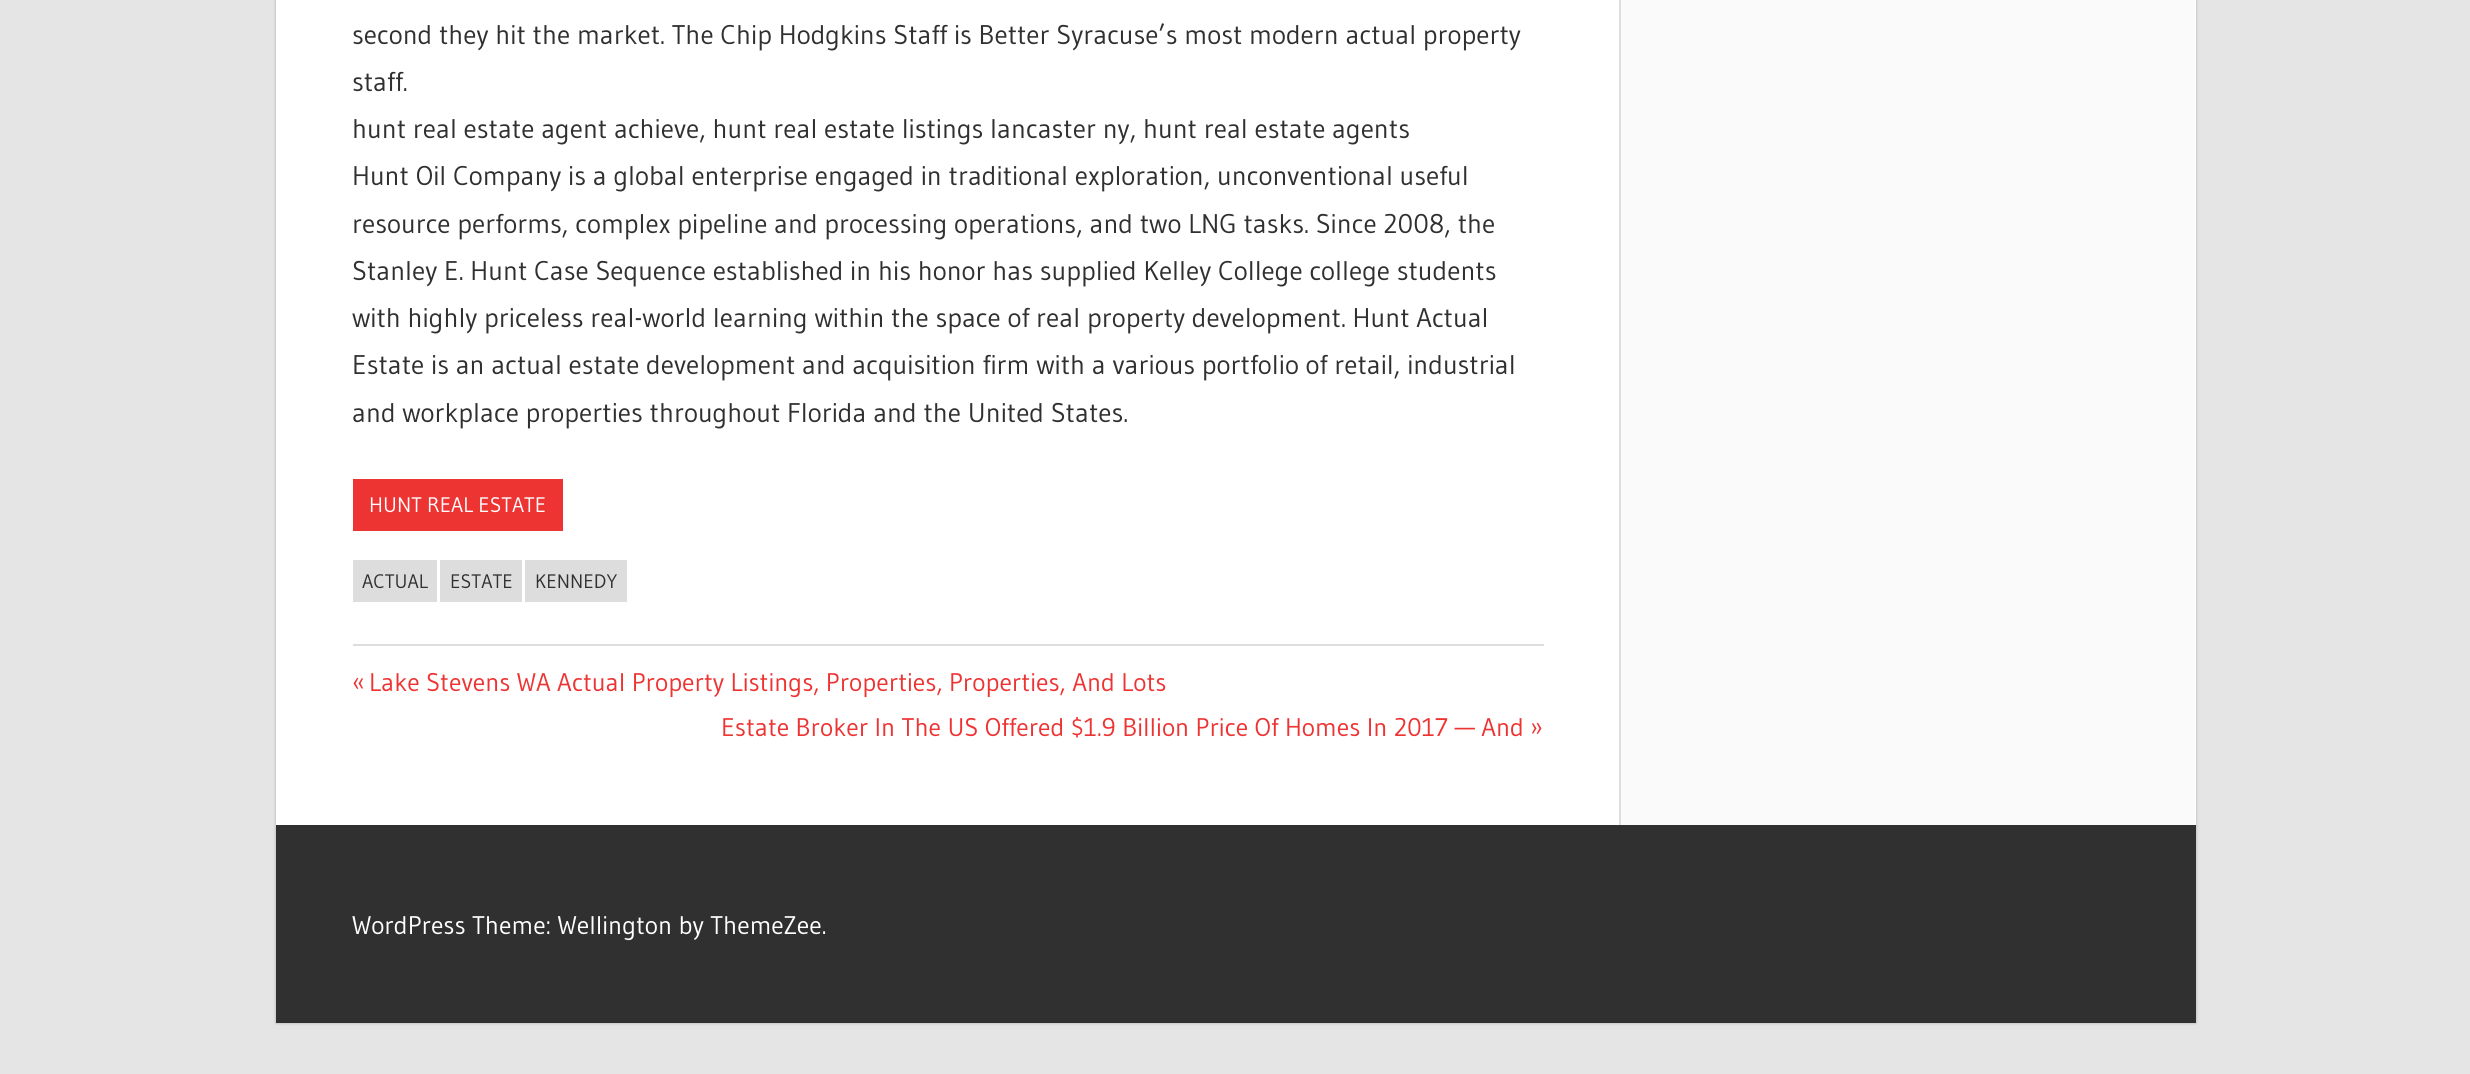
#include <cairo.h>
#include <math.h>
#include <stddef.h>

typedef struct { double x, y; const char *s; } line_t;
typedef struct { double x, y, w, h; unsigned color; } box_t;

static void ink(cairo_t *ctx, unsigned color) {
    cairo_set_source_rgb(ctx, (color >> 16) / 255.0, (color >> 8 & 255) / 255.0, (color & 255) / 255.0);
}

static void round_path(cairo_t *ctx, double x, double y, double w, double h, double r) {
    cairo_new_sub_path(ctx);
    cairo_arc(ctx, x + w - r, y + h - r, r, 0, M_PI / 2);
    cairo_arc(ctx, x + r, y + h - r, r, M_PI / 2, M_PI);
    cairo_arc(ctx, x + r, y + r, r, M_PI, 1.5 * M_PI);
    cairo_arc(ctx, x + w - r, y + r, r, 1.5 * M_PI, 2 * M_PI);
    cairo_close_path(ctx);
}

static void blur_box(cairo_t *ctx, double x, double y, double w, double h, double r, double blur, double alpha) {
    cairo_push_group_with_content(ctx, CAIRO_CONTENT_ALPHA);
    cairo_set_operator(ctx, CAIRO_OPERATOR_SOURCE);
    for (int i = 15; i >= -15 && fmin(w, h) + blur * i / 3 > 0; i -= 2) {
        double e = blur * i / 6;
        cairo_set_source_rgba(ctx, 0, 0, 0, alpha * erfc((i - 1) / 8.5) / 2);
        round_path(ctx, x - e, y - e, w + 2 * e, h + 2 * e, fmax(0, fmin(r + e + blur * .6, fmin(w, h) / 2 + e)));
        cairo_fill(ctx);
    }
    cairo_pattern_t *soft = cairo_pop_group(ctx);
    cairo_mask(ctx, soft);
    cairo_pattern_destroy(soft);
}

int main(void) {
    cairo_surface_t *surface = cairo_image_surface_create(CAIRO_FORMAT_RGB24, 2470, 1074);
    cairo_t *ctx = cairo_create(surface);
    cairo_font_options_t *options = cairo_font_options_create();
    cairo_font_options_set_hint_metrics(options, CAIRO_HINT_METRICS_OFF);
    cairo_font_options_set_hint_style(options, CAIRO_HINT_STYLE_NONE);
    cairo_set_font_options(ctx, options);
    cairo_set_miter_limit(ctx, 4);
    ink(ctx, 0xE5E5E5);
    cairo_paint(ctx);
    ink(ctx, 0xAAAAAA);
    blur_box(ctx, 276, -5, 1920, 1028, 0, 1.5, 1);
    ink(ctx, 0xFFFFFF);
    cairo_rectangle(ctx, 276, 0, 1920, 825);
    cairo_fill(ctx);
    cairo_select_font_face(ctx, "Gudea", CAIRO_FONT_SLANT_NORMAL, CAIRO_FONT_WEIGHT_NORMAL);
    cairo_set_font_size(ctx, 27);
    ink(ctx, 0x303030);
    {
        static const line_t items[] = {
            {352, 44, "second they hit the market. The Chip Hodgkins Staff is Better Syracuse’s most modern actual property"},
            {352, 91, "staff."},
            {352, 138, "hunt real estate agent achieve, hunt real estate listings lancaster ny, hunt real estate agents"},
            {352, 185, "Hunt Oil Company is a global enterprise engaged in traditional exploration, unconventional useful"},
            {352, 233, "resource performs, complex pipeline and processing operations, and two LNG tasks. Since 2008, the"},
            {352, 280, "Stanley E. Hunt Case Sequence established in his honor has supplied Kelley College college students"},
            {352, 327, "with highly priceless real-world learning within the space of real property development. Hunt Actual"},
            {352, 374, "Estate is an actual estate development and acquisition firm with a various portfolio of retail, industrial"},
            {352, 422, "and workplace properties throughout Florida and the United States."},
        };
        for (size_t i = 0; i < sizeof items / sizeof *items; i++) {
            cairo_move_to(ctx, items[i].x, items[i].y);
            cairo_show_text(ctx, items[i].s);
        }
    }
    ink(ctx, 0xEE3333);
    cairo_rectangle(ctx, 353, 479, 210, 52);
    cairo_fill(ctx);
    cairo_set_font_size(ctx, 21);
    ink(ctx, 0xFFFFFF);
    cairo_move_to(ctx, 369, 512);
    cairo_show_text(ctx, "HUNT REAL ESTATE");
    ink(ctx, 0xDDDDDD);
    cairo_rectangle(ctx, 353, 560, 84, 42);
    cairo_fill(ctx);
    cairo_set_font_size(ctx, 19.5);
    ink(ctx, 0x303030);
    cairo_move_to(ctx, 362, 588);
    cairo_show_text(ctx, "ACTUAL");
    ink(ctx, 0xDDDDDD);
    cairo_rectangle(ctx, 440, 560, 82, 42);
    cairo_fill(ctx);
    ink(ctx, 0x303030);
    cairo_move_to(ctx, 450, 588);
    cairo_show_text(ctx, "ESTATE");
    ink(ctx, 0xDDDDDD);
    cairo_rectangle(ctx, 525, 560, 102, 42);
    cairo_fill(ctx);
    ink(ctx, 0x303030);
    cairo_move_to(ctx, 535, 588);
    cairo_show_text(ctx, "KENNEDY");
    ink(ctx, 0xDDDDDD);
    cairo_rectangle(ctx, 353, 644, 1191, 2);
    cairo_fill(ctx);
    cairo_set_font_size(ctx, 25.5);
    ink(ctx, 0xEE3333);
    {
        static const line_t items[] = {
            {352, 691, "«"},
            {369, 691, "Lake Stevens WA Actual Property Listings, Properties, Properties, And Lots"},
            {721, 736, "Estate Broker In The US Offered $1.9 Billion Price Of Homes In 2017 — And"},
            {1530, 736, "»"},
        };
        for (size_t i = 0; i < sizeof items / sizeof *items; i++) {
            cairo_move_to(ctx, items[i].x, items[i].y);
            cairo_show_text(ctx, items[i].s);
        }
    }
    {
        static const box_t items[] = {
            {1621, 0, 574, 825, 0xFAFAFA},
            {1619, 0, 2, 825, 0xDDDDDD},
            {276, 825, 1920, 198, 0x303030},
        };
        for (size_t i = 0; i < sizeof items / sizeof *items; i++) {
            ink(ctx, items[i].color);
            cairo_rectangle(ctx, items[i].x, items[i].y, items[i].w, items[i].h);
            cairo_fill(ctx);
        }
    }
    ink(ctx, 0xFFFFFF);
    cairo_move_to(ctx, 352, 934);
    cairo_show_text(ctx, "WordPress Theme: Wellington by ThemeZee.");
    cairo_surface_write_to_png(surface, "image.png");
    cairo_font_options_destroy(options);
    cairo_destroy(ctx);
    cairo_surface_destroy(surface);
    return 0;
}
